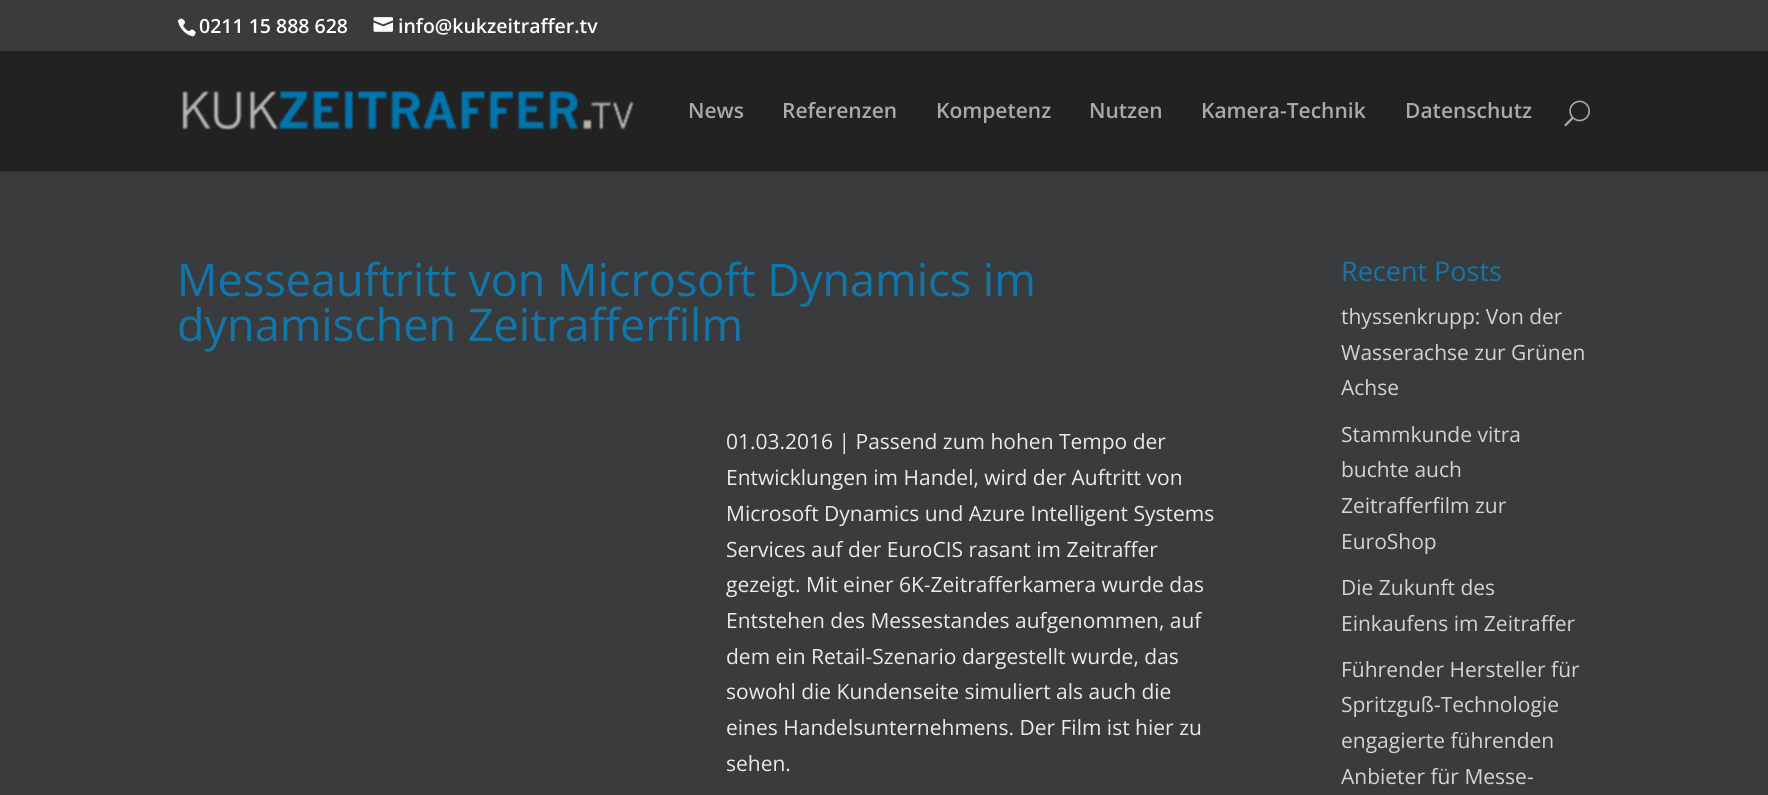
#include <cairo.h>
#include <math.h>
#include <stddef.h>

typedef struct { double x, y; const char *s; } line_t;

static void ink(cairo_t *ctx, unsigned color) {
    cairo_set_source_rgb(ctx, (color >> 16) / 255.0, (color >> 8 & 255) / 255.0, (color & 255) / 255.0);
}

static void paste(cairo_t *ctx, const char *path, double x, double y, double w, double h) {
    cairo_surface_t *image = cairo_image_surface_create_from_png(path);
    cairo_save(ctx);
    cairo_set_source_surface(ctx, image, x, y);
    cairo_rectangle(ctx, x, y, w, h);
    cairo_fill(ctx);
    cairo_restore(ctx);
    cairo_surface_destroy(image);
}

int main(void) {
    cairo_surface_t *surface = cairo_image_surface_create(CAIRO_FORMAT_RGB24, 1768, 795);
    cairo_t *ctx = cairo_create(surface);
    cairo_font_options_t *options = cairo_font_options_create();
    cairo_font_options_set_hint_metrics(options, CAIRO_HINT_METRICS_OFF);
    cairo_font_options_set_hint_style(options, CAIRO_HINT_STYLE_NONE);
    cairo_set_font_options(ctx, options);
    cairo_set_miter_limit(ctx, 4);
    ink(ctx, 0x3A3B3D);
    cairo_paint(ctx);
    paste(ctx, "media/1.png", 177, 18, 19, 19);
    cairo_select_font_face(ctx, "Open Sans SemiBold", CAIRO_FONT_SLANT_NORMAL, CAIRO_FONT_WEIGHT_NORMAL);
    cairo_set_font_size(ctx, 19.5);
    ink(ctx, 0xFFFFFF);
    cairo_move_to(ctx, 199, 33);
    cairo_show_text(ctx, "0211 15 888 628");
    paste(ctx, "media/2.png", 373, 17, 20, 15);
    cairo_move_to(ctx, 398, 33);
    cairo_show_text(ctx, "info@kukzeitraffer.tv");
    ink(ctx, 0x343537);
    cairo_new_path(ctx);
    cairo_move_to(ctx, 0, 171);
    cairo_line_to(ctx, 0, 173);
    cairo_line_to(ctx, 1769, 173);
    cairo_line_to(ctx, 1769, 53);
    cairo_line_to(ctx, 1768, 53);
    cairo_line_to(ctx, 1768, 171);
    cairo_close_path(ctx);
    cairo_fill(ctx);
    ink(ctx, 0x222222);
    cairo_rectangle(ctx, 0, 51, 1768, 120);
    cairo_fill(ctx);
    paste(ctx, "media/3.png", 182, 91, 452, 39);
    cairo_set_font_size(ctx, 21);
    ink(ctx, 0xAAAAAA);
    {
        static const line_t items[] = {
            {688, 118, "News"},
            {782, 118, "Referenzen"},
            {936, 118, "Kompetenz"},
            {1089, 118, "Nutzen"},
            {1201, 118, "Kamera-Technik"},
            {1405, 118, "Datenschutz"},
        };
        for (size_t i = 0; i < sizeof items / sizeof *items; i++) {
            cairo_move_to(ctx, items[i].x, items[i].y);
            cairo_show_text(ctx, items[i].s);
        }
    }
    paste(ctx, "media/4.png", 1564, 100, 26, 27);
    cairo_select_font_face(ctx, "Open Sans", CAIRO_FONT_SLANT_NORMAL, CAIRO_FONT_WEIGHT_NORMAL);
    cairo_set_font_size(ctx, 45);
    ink(ctx, 0x1177AB);
    cairo_move_to(ctx, 177, 296);
    cairo_show_text(ctx, "Messeauftritt von Microsoft Dynamics im");
    cairo_move_to(ctx, 177, 341);
    cairo_show_text(ctx, "dynamischen Zeitrafferfilm");
    cairo_set_font_size(ctx, 21);
    ink(ctx, 0xEAEAEA);
    {
        static const line_t items[] = {
            {726, 449, "01.03.2016 | Passend zum hohen Tempo der"},
            {726, 485, "Entwicklungen im Handel, wird der Auftritt von"},
            {726, 521, "Microsoft Dynamics und Azure Intelligent Systems"},
            {726, 557, "Services auf der EuroCIS rasant im Zeitraffer"},
            {726, 592, "gezeigt. Mit einer 6K-Zeitrafferkamera wurde das"},
            {726, 628, "Entstehen des Messestandes aufgenommen, auf"},
            {726, 664, "dem ein Retail-Szenario dargestellt wurde, das"},
            {726, 699, "sowohl die Kundenseite simuliert als auch die"},
            {726, 735, "eines Handelsunternehmens. Der Film ist hier zu"},
            {726, 771, "sehen."},
        };
        for (size_t i = 0; i < sizeof items / sizeof *items; i++) {
            cairo_move_to(ctx, items[i].x, items[i].y);
            cairo_show_text(ctx, items[i].s);
        }
    }
    cairo_set_font_size(ctx, 27);
    ink(ctx, 0x1177AB);
    cairo_move_to(ctx, 1341, 281);
    cairo_show_text(ctx, "Recent Posts");
    cairo_set_font_size(ctx, 21);
    ink(ctx, 0xD3D3D3);
    {
        static const line_t items[] = {
            {1341, 324, "thyssenkrupp: Von der"},
            {1341, 360, "Wasserachse zur Grünen"},
            {1341, 395, "Achse"},
            {1341, 442, "Stammkunde vitra"},
            {1341, 477, "buchte auch"},
            {1341, 513, "Zeitrafferfilm zur"},
            {1341, 549, "EuroShop"},
            {1341, 595, "Die Zukunft des"},
            {1341, 631, "Einkaufens im Zeitraffer"},
            {1341, 677, "Führender Hersteller für"},
            {1341, 712, "Spritzguß-Technologie"},
            {1341, 748, "engagierte führenden"},
            {1341, 784, "Anbieter für Messe-"},
        };
        for (size_t i = 0; i < sizeof items / sizeof *items; i++) {
            cairo_move_to(ctx, items[i].x, items[i].y);
            cairo_show_text(ctx, items[i].s);
        }
    }
    cairo_surface_write_to_png(surface, "image.png");
    cairo_font_options_destroy(options);
    cairo_destroy(ctx);
    cairo_surface_destroy(surface);
    return 0;
}
